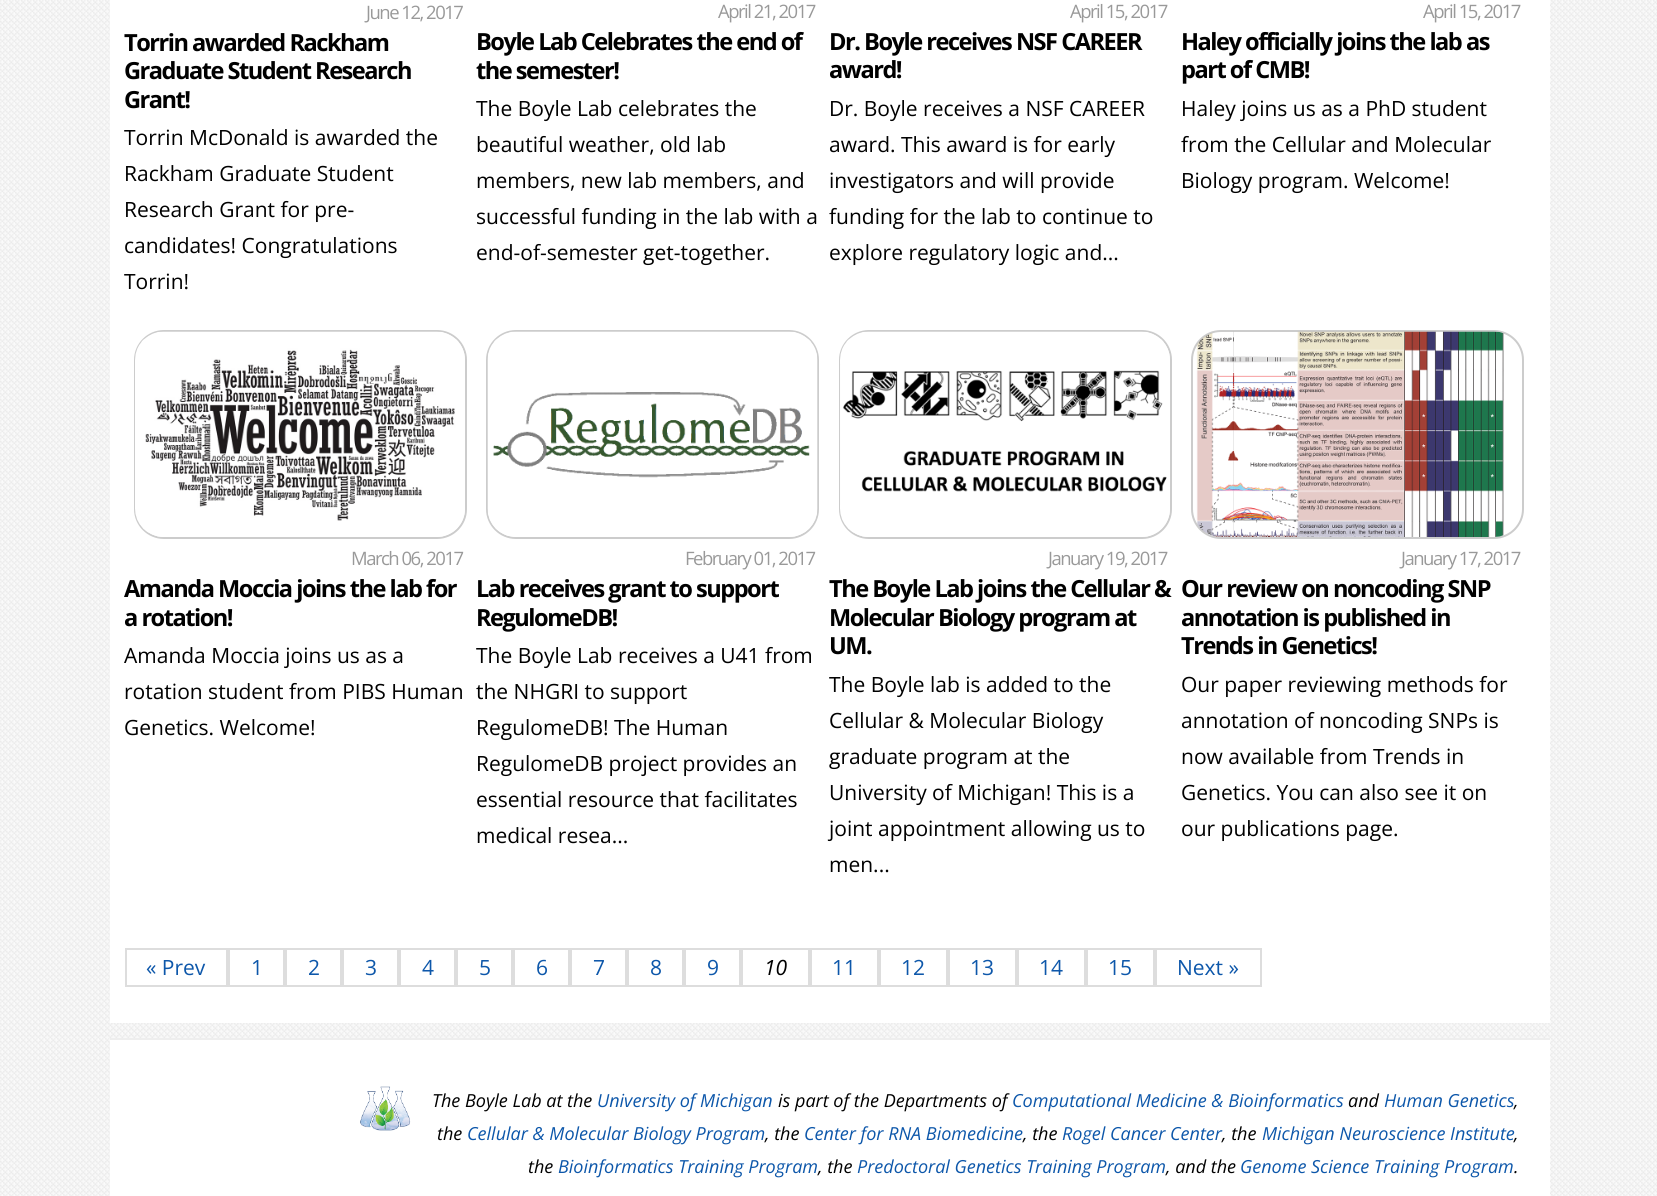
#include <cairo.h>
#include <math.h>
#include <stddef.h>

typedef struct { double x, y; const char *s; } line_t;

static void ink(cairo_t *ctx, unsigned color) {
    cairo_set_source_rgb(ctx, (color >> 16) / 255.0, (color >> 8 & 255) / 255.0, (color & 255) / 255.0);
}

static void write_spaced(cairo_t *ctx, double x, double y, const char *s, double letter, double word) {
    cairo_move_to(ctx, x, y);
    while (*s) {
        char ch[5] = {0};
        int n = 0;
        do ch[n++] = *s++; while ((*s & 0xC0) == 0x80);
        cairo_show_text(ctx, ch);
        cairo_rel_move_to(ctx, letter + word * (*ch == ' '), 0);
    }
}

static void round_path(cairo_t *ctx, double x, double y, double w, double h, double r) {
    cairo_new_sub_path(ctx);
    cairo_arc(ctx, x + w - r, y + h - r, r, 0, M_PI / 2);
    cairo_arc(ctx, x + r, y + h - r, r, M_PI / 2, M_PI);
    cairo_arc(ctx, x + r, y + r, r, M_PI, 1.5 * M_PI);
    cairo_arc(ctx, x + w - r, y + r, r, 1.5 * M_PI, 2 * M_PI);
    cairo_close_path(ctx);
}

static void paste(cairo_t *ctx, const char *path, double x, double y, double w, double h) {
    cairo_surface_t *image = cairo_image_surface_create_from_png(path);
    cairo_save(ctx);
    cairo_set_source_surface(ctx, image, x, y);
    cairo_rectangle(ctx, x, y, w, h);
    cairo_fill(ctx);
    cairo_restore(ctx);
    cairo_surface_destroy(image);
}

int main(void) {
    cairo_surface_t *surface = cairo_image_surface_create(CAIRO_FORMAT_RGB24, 1657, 1196);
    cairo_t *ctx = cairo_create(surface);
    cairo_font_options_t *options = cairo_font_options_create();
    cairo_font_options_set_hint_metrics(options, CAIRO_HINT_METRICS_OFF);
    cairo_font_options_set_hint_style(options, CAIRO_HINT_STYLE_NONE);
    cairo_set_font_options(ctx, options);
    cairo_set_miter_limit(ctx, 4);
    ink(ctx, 0xFFFFFF);
    cairo_paint(ctx);
    paste(ctx, "media/1.png", 0, 0, 1657, 1196);
    ink(ctx, 0xFFFFFF);
    cairo_rectangle(ctx, 110, 0, 1440, 1023);
    cairo_fill(ctx);
    cairo_select_font_face(ctx, "Open Sans", CAIRO_FONT_SLANT_NORMAL, CAIRO_FONT_WEIGHT_NORMAL);
    cairo_set_font_size(ctx, 18.5);
    ink(ctx, 0x999999);
    write_spaced(ctx, 366, 19, "June 12, 2017", -1.5, 0);
    cairo_select_font_face(ctx, "Open Sans", CAIRO_FONT_SLANT_NORMAL, CAIRO_FONT_WEIGHT_BOLD);
    cairo_set_font_size(ctx, 23.6);
    ink(ctx, 0x000000);
    {
        static const line_t items[] = {
            {124, 51, "Torrin awarded Rackham"},
            {124, 79, "Graduate Student Research"},
            {124, 108, "Grant!"},
        };
        for (size_t i = 0; i < sizeof items / sizeof *items; i++) {
            write_spaced(ctx, items[i].x, items[i].y, items[i].s, -1.5, 0);
        }
    }
    cairo_select_font_face(ctx, "Open Sans", CAIRO_FONT_SLANT_NORMAL, CAIRO_FONT_WEIGHT_NORMAL);
    cairo_set_font_size(ctx, 21);
    {
        static const line_t items[] = {
            {124, 145, "Torrin McDonald is awarded the"},
            {124, 181, "Rackham Graduate Student"},
            {124, 217, "Research Grant for pre-"},
            {124, 253, "candidates! Congratulations"},
            {124, 289, "Torrin!"},
        };
        for (size_t i = 0; i < sizeof items / sizeof *items; i++) {
            cairo_move_to(ctx, items[i].x, items[i].y);
            cairo_show_text(ctx, items[i].s);
        }
    }
    cairo_set_font_size(ctx, 18.5);
    ink(ctx, 0x999999);
    write_spaced(ctx, 718, 18, "April 21, 2017", -1.5, 0);
    cairo_select_font_face(ctx, "Open Sans", CAIRO_FONT_SLANT_NORMAL, CAIRO_FONT_WEIGHT_BOLD);
    cairo_set_font_size(ctx, 23.6);
    ink(ctx, 0x000000);
    write_spaced(ctx, 476, 50, "Boyle Lab Celebrates the end of", -1.5, 0);
    write_spaced(ctx, 476, 79, "the semester!", -1.5, 0);
    cairo_select_font_face(ctx, "Open Sans", CAIRO_FONT_SLANT_NORMAL, CAIRO_FONT_WEIGHT_NORMAL);
    cairo_set_font_size(ctx, 21);
    {
        static const line_t items[] = {
            {476, 116, "The Boyle Lab celebrates the"},
            {476, 152, "beautiful weather, old lab"},
            {476, 188, "members, new lab members, and"},
            {476, 224, "successful funding in the lab with a"},
            {476, 260, "end-of-semester get-together."},
        };
        for (size_t i = 0; i < sizeof items / sizeof *items; i++) {
            cairo_move_to(ctx, items[i].x, items[i].y);
            cairo_show_text(ctx, items[i].s);
        }
    }
    cairo_set_font_size(ctx, 18.5);
    ink(ctx, 0x999999);
    write_spaced(ctx, 1070, 18, "April 15, 2017", -1.5, 0);
    cairo_select_font_face(ctx, "Open Sans", CAIRO_FONT_SLANT_NORMAL, CAIRO_FONT_WEIGHT_BOLD);
    cairo_set_font_size(ctx, 23.6);
    ink(ctx, 0x000000);
    write_spaced(ctx, 829, 50, "Dr. Boyle receives NSF CAREER", -1.5, 0);
    write_spaced(ctx, 829, 78, "award!", -1.5, 0);
    cairo_select_font_face(ctx, "Open Sans", CAIRO_FONT_SLANT_NORMAL, CAIRO_FONT_WEIGHT_NORMAL);
    cairo_set_font_size(ctx, 21);
    {
        static const line_t items[] = {
            {829, 116, "Dr. Boyle receives a NSF CAREER"},
            {829, 152, "award. This award is for early"},
            {829, 188, "investigators and will provide"},
            {829, 224, "funding for the lab to continue to"},
            {829, 260, "explore regulatory logic and..."},
        };
        for (size_t i = 0; i < sizeof items / sizeof *items; i++) {
            cairo_move_to(ctx, items[i].x, items[i].y);
            cairo_show_text(ctx, items[i].s);
        }
    }
    cairo_set_font_size(ctx, 18.5);
    ink(ctx, 0x999999);
    write_spaced(ctx, 1423, 18, "April 15, 2017", -1.5, 0);
    cairo_select_font_face(ctx, "Open Sans", CAIRO_FONT_SLANT_NORMAL, CAIRO_FONT_WEIGHT_BOLD);
    cairo_set_font_size(ctx, 23.6);
    ink(ctx, 0x000000);
    write_spaced(ctx, 1181, 50, "Haley officially joins the lab as", -1.5, 0);
    write_spaced(ctx, 1181, 78, "part of CMB!", -1.5, 0);
    cairo_select_font_face(ctx, "Open Sans", CAIRO_FONT_SLANT_NORMAL, CAIRO_FONT_WEIGHT_NORMAL);
    cairo_set_font_size(ctx, 21);
    {
        static const line_t items[] = {
            {1181, 116, "Haley joins us as a PhD student"},
            {1181, 152, "from the Cellular and Molecular"},
            {1181, 188, "Biology program. Welcome!"},
        };
        for (size_t i = 0; i < sizeof items / sizeof *items; i++) {
            cairo_move_to(ctx, items[i].x, items[i].y);
            cairo_show_text(ctx, items[i].s);
        }
    }
    round_path(ctx, 135, 331, 331, 207, 29);
    ink(ctx, 0xCCCCCC);
    cairo_stroke(ctx);
    paste(ctx, "media/2.png", 135, 331, 330, 206);
    cairo_set_font_size(ctx, 18.5);
    ink(ctx, 0x999999);
    write_spaced(ctx, 351, 565, "March 06, 2017", -1.5, 0);
    cairo_select_font_face(ctx, "Open Sans", CAIRO_FONT_SLANT_NORMAL, CAIRO_FONT_WEIGHT_BOLD);
    cairo_set_font_size(ctx, 23.6);
    ink(ctx, 0x000000);
    write_spaced(ctx, 124, 597, "Amanda Moccia joins the lab for", -1.5, 0);
    write_spaced(ctx, 124, 626, "a rotation!", -1.5, 0);
    cairo_select_font_face(ctx, "Open Sans", CAIRO_FONT_SLANT_NORMAL, CAIRO_FONT_WEIGHT_NORMAL);
    cairo_set_font_size(ctx, 21);
    {
        static const line_t items[] = {
            {124, 663, "Amanda Moccia joins us as a"},
            {124, 699, "rotation student from PIBS Human"},
            {124, 735, "Genetics. Welcome!"},
        };
        for (size_t i = 0; i < sizeof items / sizeof *items; i++) {
            cairo_move_to(ctx, items[i].x, items[i].y);
            cairo_show_text(ctx, items[i].s);
        }
    }
    round_path(ctx, 487, 331, 331, 207, 29);
    ink(ctx, 0xCCCCCC);
    cairo_stroke(ctx);
    paste(ctx, "media/3.png", 487, 331, 331, 206);
    cairo_set_font_size(ctx, 18.5);
    ink(ctx, 0x999999);
    write_spaced(ctx, 685, 565, "February 01, 2017", -1.5, 0);
    cairo_select_font_face(ctx, "Open Sans", CAIRO_FONT_SLANT_NORMAL, CAIRO_FONT_WEIGHT_BOLD);
    cairo_set_font_size(ctx, 23.6);
    ink(ctx, 0x000000);
    write_spaced(ctx, 476, 597, "Lab receives grant to support", -1.5, 0);
    write_spaced(ctx, 476, 626, "RegulomeDB!", -1.5, 0);
    cairo_select_font_face(ctx, "Open Sans", CAIRO_FONT_SLANT_NORMAL, CAIRO_FONT_WEIGHT_NORMAL);
    cairo_set_font_size(ctx, 21);
    {
        static const line_t items[] = {
            {476, 663, "The Boyle Lab receives a U41 from"},
            {476, 699, "the NHGRI to support"},
            {476, 735, "RegulomeDB! The Human"},
            {476, 771, "RegulomeDB project provides an"},
            {476, 807, "essential resource that facilitates"},
            {476, 843, "medical resea..."},
        };
        for (size_t i = 0; i < sizeof items / sizeof *items; i++) {
            cairo_move_to(ctx, items[i].x, items[i].y);
            cairo_show_text(ctx, items[i].s);
        }
    }
    round_path(ctx, 840, 331, 331, 207, 29);
    ink(ctx, 0xCCCCCC);
    cairo_stroke(ctx);
    paste(ctx, "media/4.png", 840, 331, 330, 206);
    cairo_set_font_size(ctx, 18.5);
    ink(ctx, 0x999999);
    write_spaced(ctx, 1048, 565, "January 19, 2017", -1.5, 0);
    cairo_select_font_face(ctx, "Open Sans", CAIRO_FONT_SLANT_NORMAL, CAIRO_FONT_WEIGHT_BOLD);
    cairo_set_font_size(ctx, 23.6);
    ink(ctx, 0x000000);
    {
        static const line_t items[] = {
            {829, 597, "The Boyle Lab joins the Cellular &"},
            {829, 626, "Molecular Biology program at"},
            {829, 654, "UM."},
        };
        for (size_t i = 0; i < sizeof items / sizeof *items; i++) {
            write_spaced(ctx, items[i].x, items[i].y, items[i].s, -1.5, 0);
        }
    }
    cairo_select_font_face(ctx, "Open Sans", CAIRO_FONT_SLANT_NORMAL, CAIRO_FONT_WEIGHT_NORMAL);
    cairo_set_font_size(ctx, 21);
    {
        static const line_t items[] = {
            {829, 692, "The Boyle lab is added to the"},
            {829, 728, "Cellular & Molecular Biology"},
            {829, 764, "graduate program at the"},
            {829, 800, "University of Michigan! This is a"},
            {829, 836, "joint appointment allowing us to"},
            {829, 872, "men..."},
        };
        for (size_t i = 0; i < sizeof items / sizeof *items; i++) {
            cairo_move_to(ctx, items[i].x, items[i].y);
            cairo_show_text(ctx, items[i].s);
        }
    }
    round_path(ctx, 1192, 331, 331, 207, 29);
    ink(ctx, 0xCCCCCC);
    cairo_stroke(ctx);
    paste(ctx, "media/5.png", 1196, 331, 308, 206);
    cairo_set_font_size(ctx, 18.5);
    ink(ctx, 0x999999);
    write_spaced(ctx, 1401, 565, "January 17, 2017", -1.5, 0);
    cairo_select_font_face(ctx, "Open Sans", CAIRO_FONT_SLANT_NORMAL, CAIRO_FONT_WEIGHT_BOLD);
    cairo_set_font_size(ctx, 23.6);
    ink(ctx, 0x000000);
    {
        static const line_t items[] = {
            {1181, 597, "Our review on noncoding SNP"},
            {1181, 626, "annotation is published in"},
            {1181, 654, "Trends in Genetics!"},
        };
        for (size_t i = 0; i < sizeof items / sizeof *items; i++) {
            write_spaced(ctx, items[i].x, items[i].y, items[i].s, -1.5, 0);
        }
    }
    cairo_select_font_face(ctx, "Open Sans", CAIRO_FONT_SLANT_NORMAL, CAIRO_FONT_WEIGHT_NORMAL);
    cairo_set_font_size(ctx, 21);
    {
        static const line_t items[] = {
            {1181, 692, "Our paper reviewing methods for"},
            {1181, 728, "annotation of noncoding SNPs is"},
            {1181, 764, "now available from Trends in"},
            {1181, 800, "Genetics. You can also see it on"},
            {1181, 836, "our publications page."},
        };
        for (size_t i = 0; i < sizeof items / sizeof *items; i++) {
            cairo_move_to(ctx, items[i].x, items[i].y);
            cairo_show_text(ctx, items[i].s);
        }
    }
    cairo_rectangle(ctx, 126, 949, 101, 37);
    ink(ctx, 0xDDDDDD);
    cairo_stroke(ctx);
    ink(ctx, 0x0D57AA);
    cairo_move_to(ctx, 146, 975);
    cairo_show_text(ctx, "« Prev");
    cairo_rectangle(ctx, 229, 949, 55, 37);
    ink(ctx, 0xDDDDDD);
    cairo_stroke(ctx);
    ink(ctx, 0x0D57AA);
    cairo_move_to(ctx, 251, 975);
    cairo_show_text(ctx, "1");
    cairo_rectangle(ctx, 286, 949, 55, 37);
    ink(ctx, 0xDDDDDD);
    cairo_stroke(ctx);
    ink(ctx, 0x0D57AA);
    cairo_move_to(ctx, 308, 975);
    cairo_show_text(ctx, "2");
    cairo_rectangle(ctx, 343, 949, 55, 37);
    ink(ctx, 0xDDDDDD);
    cairo_stroke(ctx);
    ink(ctx, 0x0D57AA);
    cairo_move_to(ctx, 365, 975);
    cairo_show_text(ctx, "3");
    cairo_rectangle(ctx, 400, 949, 55, 37);
    ink(ctx, 0xDDDDDD);
    cairo_stroke(ctx);
    ink(ctx, 0x0D57AA);
    cairo_move_to(ctx, 422, 975);
    cairo_show_text(ctx, "4");
    cairo_rectangle(ctx, 457, 949, 55, 37);
    ink(ctx, 0xDDDDDD);
    cairo_stroke(ctx);
    ink(ctx, 0x0D57AA);
    cairo_move_to(ctx, 479, 975);
    cairo_show_text(ctx, "5");
    cairo_rectangle(ctx, 514, 949, 55, 37);
    ink(ctx, 0xDDDDDD);
    cairo_stroke(ctx);
    ink(ctx, 0x0D57AA);
    cairo_move_to(ctx, 536, 975);
    cairo_show_text(ctx, "6");
    cairo_rectangle(ctx, 571, 949, 55, 37);
    ink(ctx, 0xDDDDDD);
    cairo_stroke(ctx);
    ink(ctx, 0x0D57AA);
    cairo_move_to(ctx, 593, 975);
    cairo_show_text(ctx, "7");
    cairo_rectangle(ctx, 628, 949, 55, 37);
    ink(ctx, 0xDDDDDD);
    cairo_stroke(ctx);
    ink(ctx, 0x0D57AA);
    cairo_move_to(ctx, 650, 975);
    cairo_show_text(ctx, "8");
    cairo_rectangle(ctx, 685, 949, 55, 37);
    ink(ctx, 0xDDDDDD);
    cairo_stroke(ctx);
    ink(ctx, 0x0D57AA);
    cairo_move_to(ctx, 707, 975);
    cairo_show_text(ctx, "9");
    cairo_rectangle(ctx, 742, 949, 67, 37);
    ink(ctx, 0xDDDDDD);
    cairo_stroke(ctx);
    cairo_select_font_face(ctx, "Open Sans", CAIRO_FONT_SLANT_ITALIC, CAIRO_FONT_WEIGHT_NORMAL);
    ink(ctx, 0x000000);
    cairo_move_to(ctx, 764, 975);
    cairo_show_text(ctx, "10");
    cairo_rectangle(ctx, 811, 949, 67, 37);
    ink(ctx, 0xDDDDDD);
    cairo_stroke(ctx);
    cairo_select_font_face(ctx, "Open Sans", CAIRO_FONT_SLANT_NORMAL, CAIRO_FONT_WEIGHT_NORMAL);
    ink(ctx, 0x0D57AA);
    cairo_move_to(ctx, 832, 975);
    cairo_show_text(ctx, "11");
    cairo_rectangle(ctx, 880, 949, 67, 37);
    ink(ctx, 0xDDDDDD);
    cairo_stroke(ctx);
    ink(ctx, 0x0D57AA);
    cairo_move_to(ctx, 901, 975);
    cairo_show_text(ctx, "12");
    cairo_rectangle(ctx, 949, 949, 67, 37);
    ink(ctx, 0xDDDDDD);
    cairo_stroke(ctx);
    ink(ctx, 0x0D57AA);
    cairo_move_to(ctx, 970, 975);
    cairo_show_text(ctx, "13");
    cairo_rectangle(ctx, 1018, 949, 67, 37);
    ink(ctx, 0xDDDDDD);
    cairo_stroke(ctx);
    ink(ctx, 0x0D57AA);
    cairo_move_to(ctx, 1039, 975);
    cairo_show_text(ctx, "14");
    cairo_rectangle(ctx, 1087, 949, 67, 37);
    ink(ctx, 0xDDDDDD);
    cairo_stroke(ctx);
    ink(ctx, 0x0D57AA);
    cairo_move_to(ctx, 1108, 975);
    cairo_show_text(ctx, "15");
    cairo_rectangle(ctx, 1156, 949, 105, 37);
    ink(ctx, 0xDDDDDD);
    cairo_stroke(ctx);
    ink(ctx, 0x0D57AA);
    cairo_move_to(ctx, 1177, 975);
    cairo_show_text(ctx, "Next »");
    ink(ctx, 0xFFFFFF);
    cairo_rectangle(ctx, 110, 1040, 1440, 156);
    cairo_fill(ctx);
    ink(ctx, 0xEEEEEE);
    cairo_rectangle(ctx, 110, 1038, 1440, 2);
    cairo_fill(ctx);
    paste(ctx, "media/6.png", 360, 1086, 51, 45);
    cairo_select_font_face(ctx, "Open Sans", CAIRO_FONT_SLANT_ITALIC, CAIRO_FONT_WEIGHT_NORMAL);
    cairo_set_font_size(ctx, 18);
    ink(ctx, 0x000000);
    cairo_move_to(ctx, 432, 1107);
    cairo_show_text(ctx, "The Boyle Lab at the");
    ink(ctx, 0x0D57AA);
    cairo_move_to(ctx, 597, 1107);
    cairo_show_text(ctx, "University of Michigan");
    ink(ctx, 0x000000);
    cairo_move_to(ctx, 778, 1107);
    cairo_show_text(ctx, "is part of the Departments of");
    ink(ctx, 0x0D57AA);
    cairo_move_to(ctx, 1012, 1107);
    cairo_show_text(ctx, "Computational Medicine & Bioinformatics");
    ink(ctx, 0x000000);
    cairo_move_to(ctx, 1348, 1107);
    cairo_show_text(ctx, "and");
    ink(ctx, 0x0D57AA);
    cairo_move_to(ctx, 1384, 1107);
    cairo_show_text(ctx, "Human Genetics");
    ink(ctx, 0x000000);
    cairo_move_to(ctx, 1514, 1107);
    cairo_show_text(ctx, ",");
    cairo_move_to(ctx, 437, 1140);
    cairo_show_text(ctx, "the");
    ink(ctx, 0x0D57AA);
    cairo_move_to(ctx, 467, 1140);
    cairo_show_text(ctx, "Cellular & Molecular Biology Program");
    ink(ctx, 0x000000);
    cairo_move_to(ctx, 765, 1140);
    cairo_show_text(ctx, ", the");
    ink(ctx, 0x0D57AA);
    cairo_move_to(ctx, 804, 1140);
    cairo_show_text(ctx, "Center for RNA Biomedicine");
    ink(ctx, 0x000000);
    cairo_move_to(ctx, 1023, 1140);
    cairo_show_text(ctx, ", the");
    ink(ctx, 0x0D57AA);
    cairo_move_to(ctx, 1062, 1140);
    cairo_show_text(ctx, "Rogel Cancer Center");
    ink(ctx, 0x000000);
    cairo_move_to(ctx, 1222, 1140);
    cairo_show_text(ctx, ", the");
    ink(ctx, 0x0D57AA);
    cairo_move_to(ctx, 1262, 1140);
    cairo_show_text(ctx, "Michigan Neuroscience Institute");
    ink(ctx, 0x000000);
    cairo_move_to(ctx, 1514, 1140);
    cairo_show_text(ctx, ",");
    cairo_move_to(ctx, 528, 1173);
    cairo_show_text(ctx, "the");
    ink(ctx, 0x0D57AA);
    cairo_move_to(ctx, 558, 1173);
    cairo_show_text(ctx, "Bioinformatics Training Program");
    ink(ctx, 0x000000);
    cairo_move_to(ctx, 818, 1173);
    cairo_show_text(ctx, ", the");
    ink(ctx, 0x0D57AA);
    cairo_move_to(ctx, 857, 1173);
    cairo_show_text(ctx, "Predoctoral Genetics Training Program");
    ink(ctx, 0x000000);
    cairo_move_to(ctx, 1166, 1173);
    cairo_show_text(ctx, ", and the");
    ink(ctx, 0x0D57AA);
    cairo_move_to(ctx, 1240, 1173);
    cairo_show_text(ctx, "Genome Science Training Program");
    ink(ctx, 0x000000);
    cairo_move_to(ctx, 1514, 1173);
    cairo_show_text(ctx, ".");
    cairo_surface_write_to_png(surface, "image.png");
    cairo_font_options_destroy(options);
    cairo_destroy(ctx);
    cairo_surface_destroy(surface);
    return 0;
}
